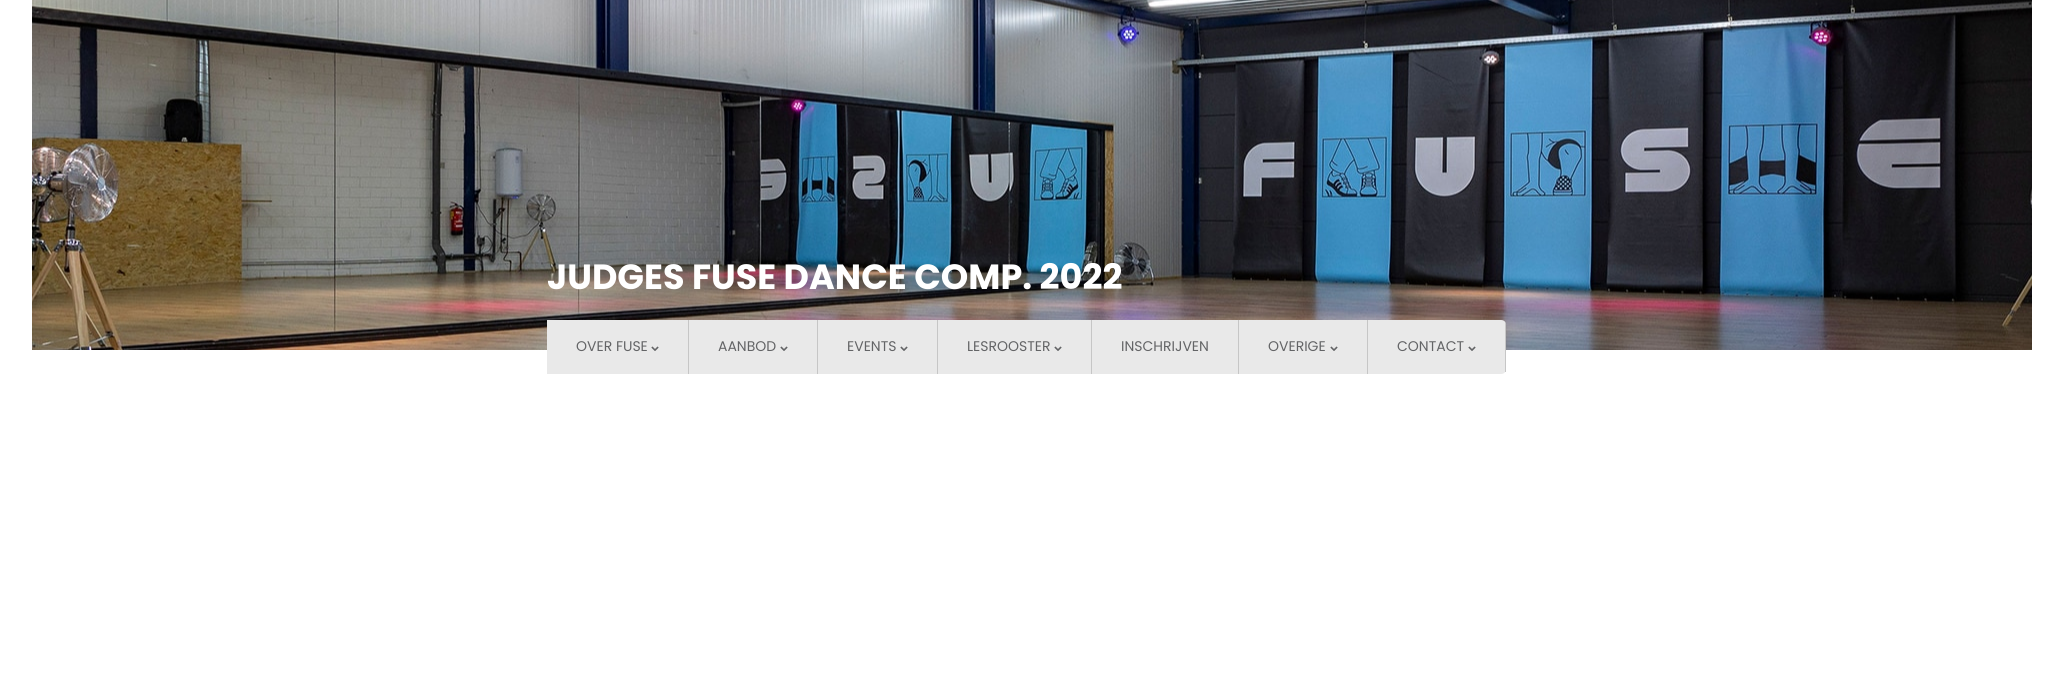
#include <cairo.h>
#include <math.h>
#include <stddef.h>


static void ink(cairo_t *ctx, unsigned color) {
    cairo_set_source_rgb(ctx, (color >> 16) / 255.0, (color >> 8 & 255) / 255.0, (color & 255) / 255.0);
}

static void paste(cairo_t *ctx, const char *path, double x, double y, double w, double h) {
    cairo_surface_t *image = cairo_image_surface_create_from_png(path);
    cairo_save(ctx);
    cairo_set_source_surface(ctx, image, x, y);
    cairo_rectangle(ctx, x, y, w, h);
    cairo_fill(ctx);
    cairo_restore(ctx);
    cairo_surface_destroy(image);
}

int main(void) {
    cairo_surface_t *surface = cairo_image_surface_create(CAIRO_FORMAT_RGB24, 2064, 679);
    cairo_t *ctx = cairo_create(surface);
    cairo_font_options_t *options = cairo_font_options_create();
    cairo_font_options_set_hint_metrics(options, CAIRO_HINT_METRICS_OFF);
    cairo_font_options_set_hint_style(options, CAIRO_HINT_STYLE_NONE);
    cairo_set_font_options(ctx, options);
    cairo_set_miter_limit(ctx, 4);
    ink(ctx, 0xFFFFFF);
    cairo_paint(ctx);
    paste(ctx, "media/1.png", 32, 0, 2000, 350);
    cairo_select_font_face(ctx, "Poppins", CAIRO_FONT_SLANT_NORMAL, CAIRO_FONT_WEIGHT_BOLD);
    cairo_set_font_size(ctx, 35);
    ink(ctx, 0xFFFFFF);
    cairo_move_to(ctx, 547, 289);
    cairo_show_text(ctx, "JUDGES FUSE DANCE COMP. 2022");
    ink(ctx, 0xE9E9E9);
    cairo_rectangle(ctx, 547, 320, 141, 54);
    cairo_fill(ctx);
    ink(ctx, 0xC6C6C6);
    cairo_rectangle(ctx, 688, 320, 1, 54);
    cairo_fill(ctx);
    cairo_select_font_face(ctx, "Poppins", CAIRO_FONT_SLANT_NORMAL, CAIRO_FONT_WEIGHT_NORMAL);
    cairo_set_font_size(ctx, 14);
    ink(ctx, 0x636466);
    cairo_move_to(ctx, 576, 351);
    cairo_show_text(ctx, "OVER FUSE");
    paste(ctx, "media/2.png", 651, 346, 8, 5);
    ink(ctx, 0xE9E9E9);
    cairo_rectangle(ctx, 689, 320, 128, 54);
    cairo_fill(ctx);
    ink(ctx, 0xC6C6C6);
    cairo_rectangle(ctx, 817, 320, 1, 54);
    cairo_fill(ctx);
    ink(ctx, 0x636466);
    cairo_move_to(ctx, 718, 351);
    cairo_show_text(ctx, "AANBOD");
    paste(ctx, "media/2.png", 780, 346, 8, 5);
    ink(ctx, 0xE9E9E9);
    cairo_rectangle(ctx, 818, 320, 119, 54);
    cairo_fill(ctx);
    ink(ctx, 0xC6C6C6);
    cairo_rectangle(ctx, 937, 320, 1, 54);
    cairo_fill(ctx);
    ink(ctx, 0x636466);
    cairo_move_to(ctx, 847, 351);
    cairo_show_text(ctx, "EVENTS");
    paste(ctx, "media/2.png", 900, 346, 8, 5);
    ink(ctx, 0xE9E9E9);
    cairo_rectangle(ctx, 938, 320, 153, 54);
    cairo_fill(ctx);
    ink(ctx, 0xC6C6C6);
    cairo_rectangle(ctx, 1091, 320, 1, 54);
    cairo_fill(ctx);
    ink(ctx, 0x636466);
    cairo_move_to(ctx, 967, 351);
    cairo_show_text(ctx, "LESROOSTER");
    paste(ctx, "media/2.png", 1054, 346, 8, 5);
    ink(ctx, 0xE9E9E9);
    cairo_rectangle(ctx, 1092, 320, 146, 54);
    cairo_fill(ctx);
    ink(ctx, 0xC6C6C6);
    cairo_rectangle(ctx, 1238, 320, 1, 54);
    cairo_fill(ctx);
    ink(ctx, 0x636466);
    cairo_move_to(ctx, 1121, 351);
    cairo_show_text(ctx, "INSCHRIJVEN");
    ink(ctx, 0xE9E9E9);
    cairo_rectangle(ctx, 1239, 320, 128, 54);
    cairo_fill(ctx);
    ink(ctx, 0xC6C6C6);
    cairo_rectangle(ctx, 1367, 320, 1, 54);
    cairo_fill(ctx);
    ink(ctx, 0x636466);
    cairo_move_to(ctx, 1268, 351);
    cairo_show_text(ctx, "OVERIGE");
    paste(ctx, "media/2.png", 1330, 346, 8, 5);
    ink(ctx, 0xE9E9E9);
    cairo_new_path(ctx);
    cairo_move_to(ctx, 1368, 320);
    cairo_line_to(ctx, 1501, 320);
    cairo_curve_to(ctx, 1504, 320, 1506, 322, 1506, 325);
    cairo_line_to(ctx, 1506, 369);
    cairo_curve_to(ctx, 1506, 372, 1504, 374, 1501, 374);
    cairo_line_to(ctx, 1368, 374);
    cairo_close_path(ctx);
    cairo_fill(ctx);
    ink(ctx, 0xC6C6C6);
    cairo_rectangle(ctx, 1505, 323, 1, 49);
    cairo_fill(ctx);
    ink(ctx, 0x636466);
    cairo_move_to(ctx, 1397, 351);
    cairo_show_text(ctx, "CONTACT");
    paste(ctx, "media/2.png", 1468, 346, 8, 5);
    cairo_surface_write_to_png(surface, "image.png");
    cairo_font_options_destroy(options);
    cairo_destroy(ctx);
    cairo_surface_destroy(surface);
    return 0;
}
